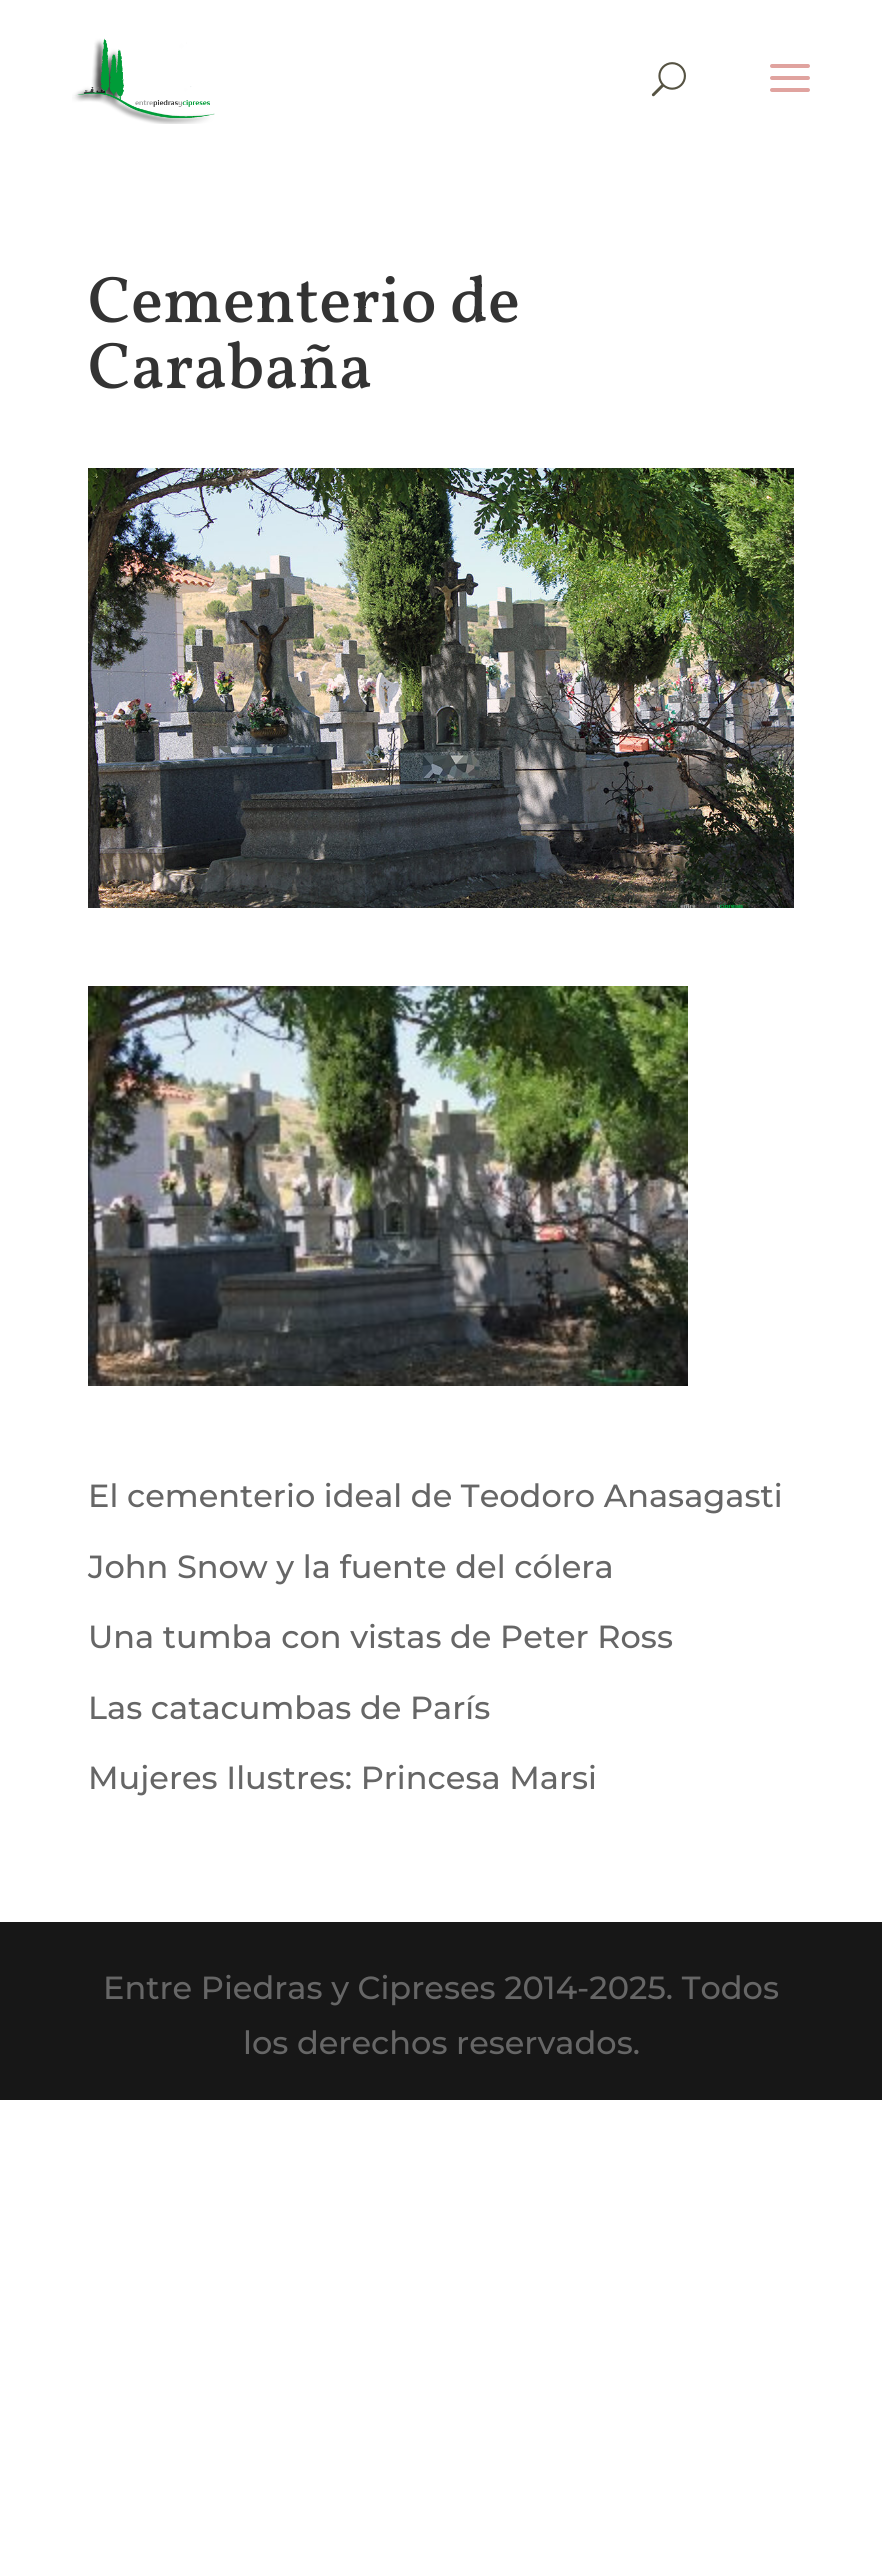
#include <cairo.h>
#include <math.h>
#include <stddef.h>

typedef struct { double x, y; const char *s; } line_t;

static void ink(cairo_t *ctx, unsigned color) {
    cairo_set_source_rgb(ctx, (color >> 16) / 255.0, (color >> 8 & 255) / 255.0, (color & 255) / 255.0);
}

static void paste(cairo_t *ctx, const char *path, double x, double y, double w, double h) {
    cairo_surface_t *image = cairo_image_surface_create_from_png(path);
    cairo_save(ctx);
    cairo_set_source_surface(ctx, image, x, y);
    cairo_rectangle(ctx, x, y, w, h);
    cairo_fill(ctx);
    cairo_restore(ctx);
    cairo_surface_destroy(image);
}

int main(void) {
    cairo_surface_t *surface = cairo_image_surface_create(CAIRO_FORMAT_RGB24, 882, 2558);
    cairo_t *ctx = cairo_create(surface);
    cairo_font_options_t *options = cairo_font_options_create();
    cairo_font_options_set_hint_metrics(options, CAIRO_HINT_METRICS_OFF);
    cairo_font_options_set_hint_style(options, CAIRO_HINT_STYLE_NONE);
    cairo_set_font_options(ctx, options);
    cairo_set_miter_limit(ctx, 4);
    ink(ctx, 0xFFFFFF);
    cairo_paint(ctx);
    paste(ctx, "media/1.png", 72, 38, 143, 86);
    paste(ctx, "media/2.png", 651, 62, 35, 35);
    paste(ctx, "media/3.png", 770, 64, 40, 28);
    cairo_select_font_face(ctx, "Vollkorn Medium", CAIRO_FONT_SLANT_NORMAL, CAIRO_FONT_WEIGHT_NORMAL);
    cairo_set_font_size(ctx, 66);
    ink(ctx, 0x333333);
    cairo_move_to(ctx, 88, 322);
    cairo_show_text(ctx, "Cementerio de");
    cairo_move_to(ctx, 88, 388);
    cairo_show_text(ctx, "Carabaña");
    paste(ctx, "media/4.png", 88, 468, 706, 440);
    paste(ctx, "media/5.png", 88, 986, 600, 400);
    cairo_select_font_face(ctx, "Montserrat Medium", CAIRO_FONT_SLANT_NORMAL, CAIRO_FONT_WEIGHT_NORMAL);
    cairo_set_font_size(ctx, 32);
    ink(ctx, 0x666666);
    {
        static const line_t items[] = {
            {88, 1507, "El cementerio ideal de Teodoro Anasagasti"},
            {88, 1578, "John Snow y la fuente del cólera"},
            {88, 1648, "Una tumba con vistas de Peter Ross"},
            {88, 1719, "Las catacumbas de París"},
            {88, 1789, "Mujeres Ilustres: Princesa Marsi"},
        };
        for (size_t i = 0; i < sizeof items / sizeof *items; i++) {
            cairo_move_to(ctx, items[i].x, items[i].y);
            cairo_show_text(ctx, items[i].s);
        }
    }
    ink(ctx, 0x171717);
    cairo_rectangle(ctx, 0, 1922, 882, 178);
    cairo_fill(ctx);
    ink(ctx, 0x666666);
    cairo_move_to(ctx, 103, 1999);
    cairo_show_text(ctx, "Entre Piedras y Cipreses 2014-2025. Todos");
    cairo_move_to(ctx, 243, 2054);
    cairo_show_text(ctx, "los derechos reservados.");
    cairo_surface_write_to_png(surface, "image.png");
    cairo_font_options_destroy(options);
    cairo_destroy(ctx);
    cairo_surface_destroy(surface);
    return 0;
}
